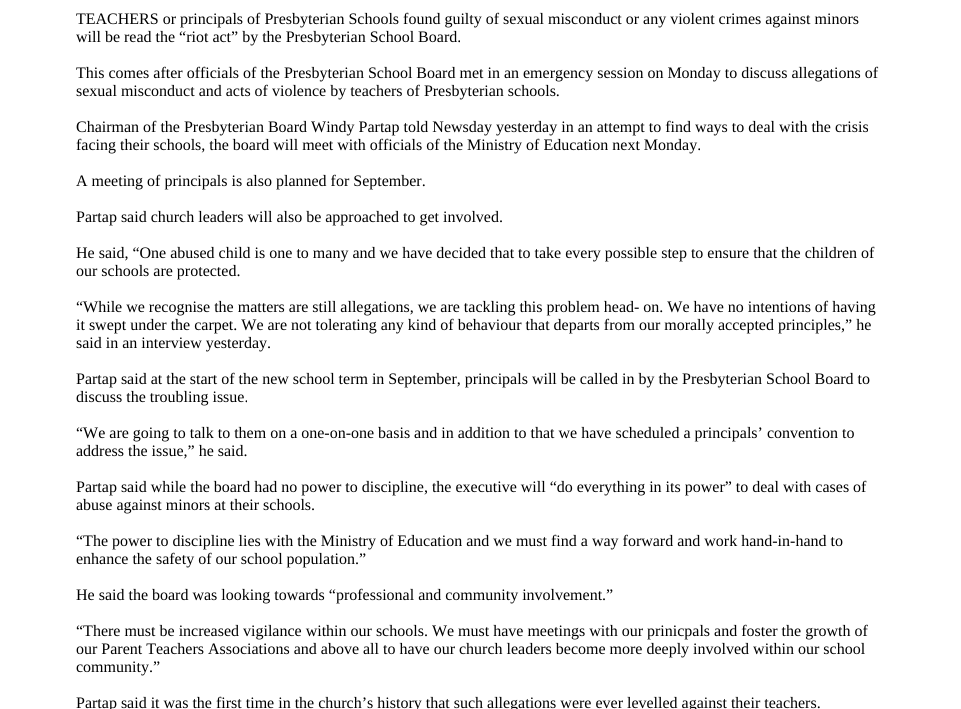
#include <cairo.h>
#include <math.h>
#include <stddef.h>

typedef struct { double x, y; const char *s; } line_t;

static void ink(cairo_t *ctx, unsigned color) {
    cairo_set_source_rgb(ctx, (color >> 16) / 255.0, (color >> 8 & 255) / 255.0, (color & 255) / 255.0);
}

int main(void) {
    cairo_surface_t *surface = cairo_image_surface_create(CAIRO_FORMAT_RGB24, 961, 709);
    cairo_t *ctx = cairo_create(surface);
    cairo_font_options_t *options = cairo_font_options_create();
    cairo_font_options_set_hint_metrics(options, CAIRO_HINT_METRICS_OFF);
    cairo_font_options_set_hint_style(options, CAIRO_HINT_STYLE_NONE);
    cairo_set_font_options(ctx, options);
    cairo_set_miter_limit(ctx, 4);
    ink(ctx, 0xFFFFFF);
    cairo_paint(ctx);
    cairo_select_font_face(ctx, "Liberation Serif", CAIRO_FONT_SLANT_NORMAL, CAIRO_FONT_WEIGHT_NORMAL);
    cairo_set_font_size(ctx, 16);
    ink(ctx, 0x000000);
    {
        static const line_t items[] = {
            {76, 24, "TEACHERS or principals of Presbyterian Schools found guilty of sexual misconduct or any violent crimes against minors"},
            {76, 42, "will be read the “riot act” by the Presbyterian School Board."},
            {76, 78, "This comes after officials of the Presbyterian School Board met in an emergency session on Monday to discuss allegations of"},
            {76, 96, "sexual misconduct and acts of violence by teachers of Presbyterian schools."},
            {76, 132, "Chairman of the Presbyterian Board Windy Partap told Newsday yesterday in an attempt to find ways to deal with the crisis"},
            {76, 150, "facing their schools, the board will meet with officials of the Ministry of Education next Monday."},
            {76, 186, "A meeting of principals is also planned for September."},
            {76, 222, "Partap said church leaders will also be approached to get involved."},
            {76, 258, "He said, “One abused child is one to many and we have decided that to take every possible step to ensure that the children of"},
            {76, 276, "our schools are protected."},
            {76, 312, "“While we recognise the matters are still allegations, we are tackling this problem head- on. We have no intentions of having"},
            {76, 330, "it swept under the carpet. We are not tolerating any kind of behaviour that departs from our morally accepted principles,” he"},
            {76, 348, "said in an interview yesterday."},
            {76, 384, "Partap said at the start of the new school term in September, principals will be called in by the Presbyterian School Board to"},
            {76, 402, "discuss the troubling issue."},
            {76, 438, "“We are going to talk to them on a one-on-one basis and in addition to that we have scheduled a principals’ convention to"},
            {76, 456, "address the issue,” he said."},
            {76, 492, "Partap said while the board had no power to discipline, the executive will “do everything in its power” to deal with cases of"},
            {76, 510, "abuse against minors at their schools."},
            {76, 546, "“The power to discipline lies with the Ministry of Education and we must find a way forward and work hand-in-hand to"},
            {76, 564, "enhance the safety of our school population.”"},
            {76, 600, "He said the board was looking towards “professional and community involvement.”"},
            {76, 636, "“There must be increased vigilance within our schools. We must have meetings with our prinicpals and foster the growth of"},
            {76, 654, "our Parent Teachers Associations and above all to have our church leaders become more deeply involved within our school"},
            {76, 672, "community.”"},
            {76, 708, "Partap said it was the first time in the church’s history that such allegations were ever levelled against their teachers."},
        };
        for (size_t i = 0; i < sizeof items / sizeof *items; i++) {
            cairo_move_to(ctx, items[i].x, items[i].y);
            cairo_show_text(ctx, items[i].s);
        }
    }
    cairo_surface_write_to_png(surface, "image.png");
    cairo_font_options_destroy(options);
    cairo_destroy(ctx);
    cairo_surface_destroy(surface);
    return 0;
}
